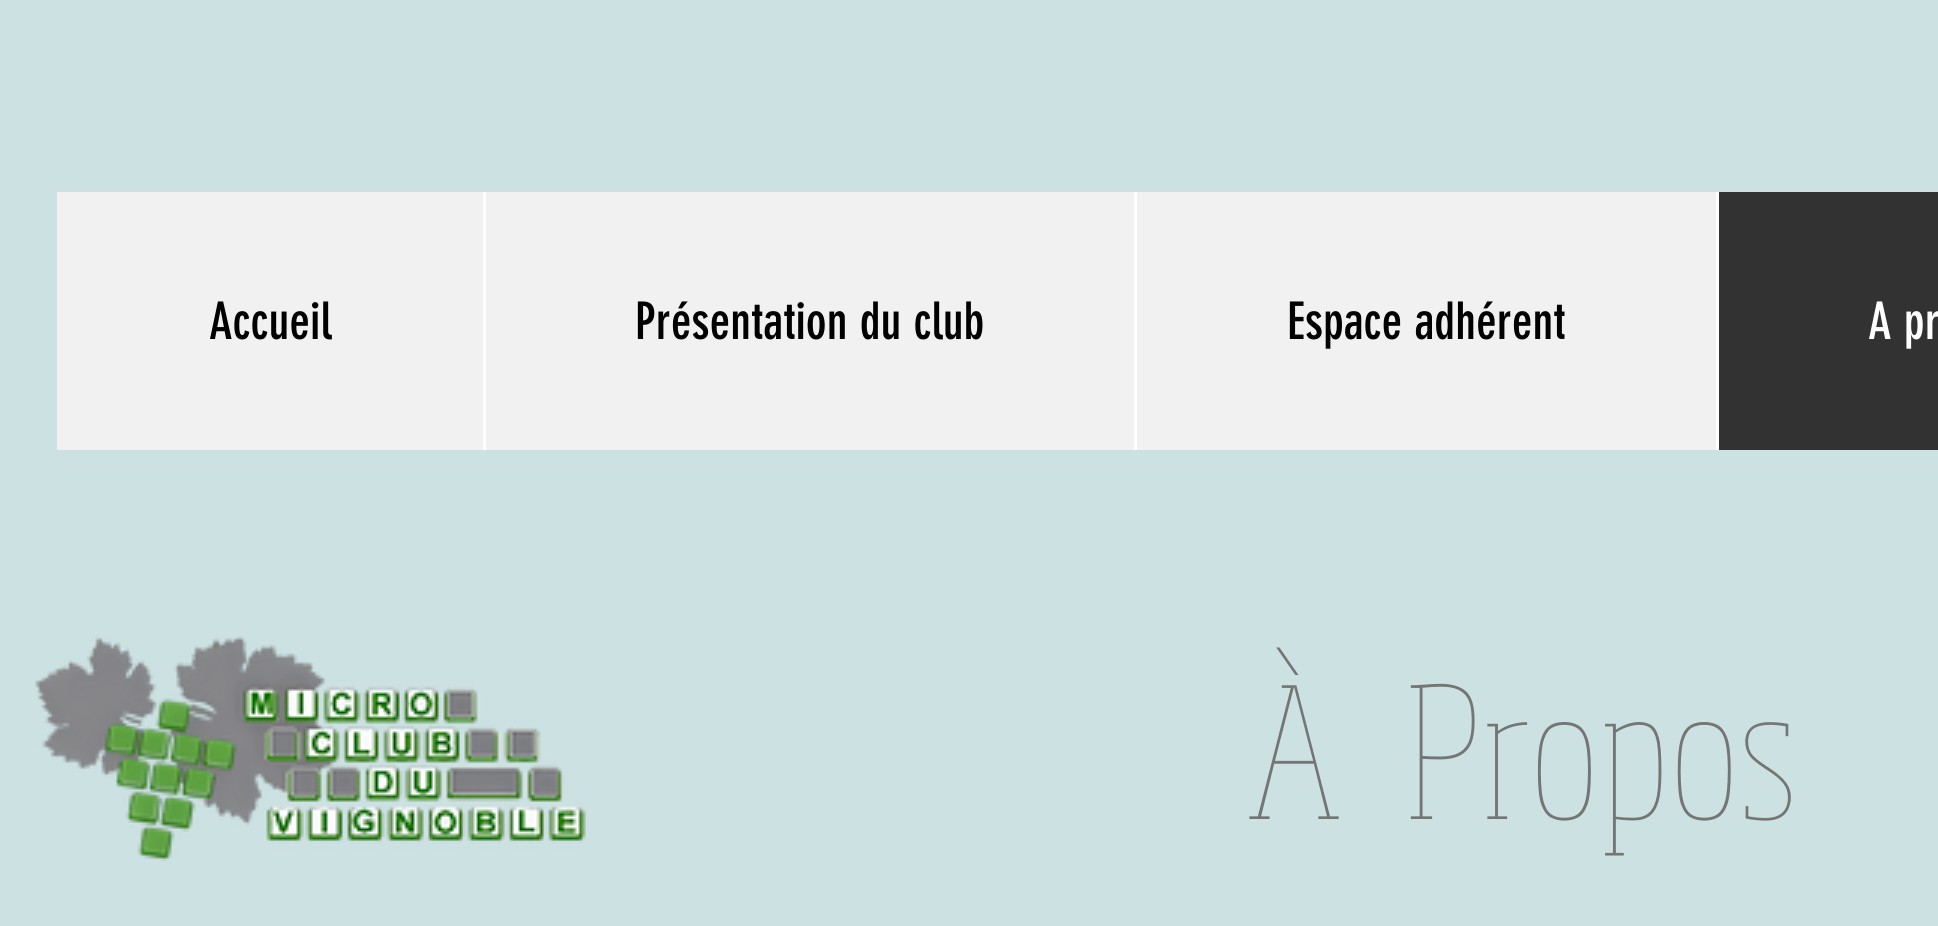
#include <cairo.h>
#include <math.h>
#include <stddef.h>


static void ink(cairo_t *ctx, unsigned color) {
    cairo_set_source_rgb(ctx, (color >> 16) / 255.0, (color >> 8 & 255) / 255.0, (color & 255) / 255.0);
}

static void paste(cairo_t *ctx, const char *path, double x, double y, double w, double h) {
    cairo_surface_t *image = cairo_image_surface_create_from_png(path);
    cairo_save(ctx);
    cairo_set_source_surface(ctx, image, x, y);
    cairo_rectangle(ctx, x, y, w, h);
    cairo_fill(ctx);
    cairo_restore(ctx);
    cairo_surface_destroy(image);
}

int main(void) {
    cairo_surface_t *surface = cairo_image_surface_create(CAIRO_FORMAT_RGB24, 1938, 926);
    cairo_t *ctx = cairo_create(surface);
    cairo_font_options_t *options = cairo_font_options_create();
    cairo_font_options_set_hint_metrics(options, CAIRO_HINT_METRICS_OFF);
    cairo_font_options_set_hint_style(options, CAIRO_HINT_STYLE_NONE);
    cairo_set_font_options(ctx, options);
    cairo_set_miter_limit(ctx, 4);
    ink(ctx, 0xCCE2E2);
    cairo_paint(ctx);
    ink(ctx, 0xF1F1F1);
    cairo_rectangle(ctx, 57, 192, 1659, 258);
    cairo_fill(ctx);
    cairo_select_font_face(ctx, "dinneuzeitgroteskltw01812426", CAIRO_FONT_SLANT_NORMAL, CAIRO_FONT_WEIGHT_NORMAL);
    cairo_set_font_size(ctx, 51);
    ink(ctx, 0x000000);
    cairo_move_to(ctx, 209, 339);
    cairo_show_text(ctx, "Accueil");
    ink(ctx, 0xFFFFFF);
    cairo_rectangle(ctx, 483, 192, 3, 258);
    cairo_fill(ctx);
    ink(ctx, 0x000000);
    cairo_move_to(ctx, 635, 339);
    cairo_show_text(ctx, "Présentation du club");
    ink(ctx, 0xFFFFFF);
    cairo_rectangle(ctx, 1134, 192, 3, 258);
    cairo_fill(ctx);
    ink(ctx, 0x000000);
    cairo_move_to(ctx, 1287, 339);
    cairo_show_text(ctx, "Espace adhérent");
    ink(ctx, 0x323232);
    cairo_rectangle(ctx, 1719, 192, 219, 258);
    cairo_fill(ctx);
    ink(ctx, 0xFFFFFF);
    cairo_rectangle(ctx, 1716, 192, 3, 258);
    cairo_fill(ctx);
    cairo_move_to(ctx, 1868, 339);
    cairo_show_text(ctx, "A pr");
    paste(ctx, "media/1.png", 35, 635, 551, 226);
    paste(ctx, "media/2.png", 1249, 647, 542, 209);
    cairo_surface_write_to_png(surface, "image.png");
    cairo_font_options_destroy(options);
    cairo_destroy(ctx);
    cairo_surface_destroy(surface);
    return 0;
}
